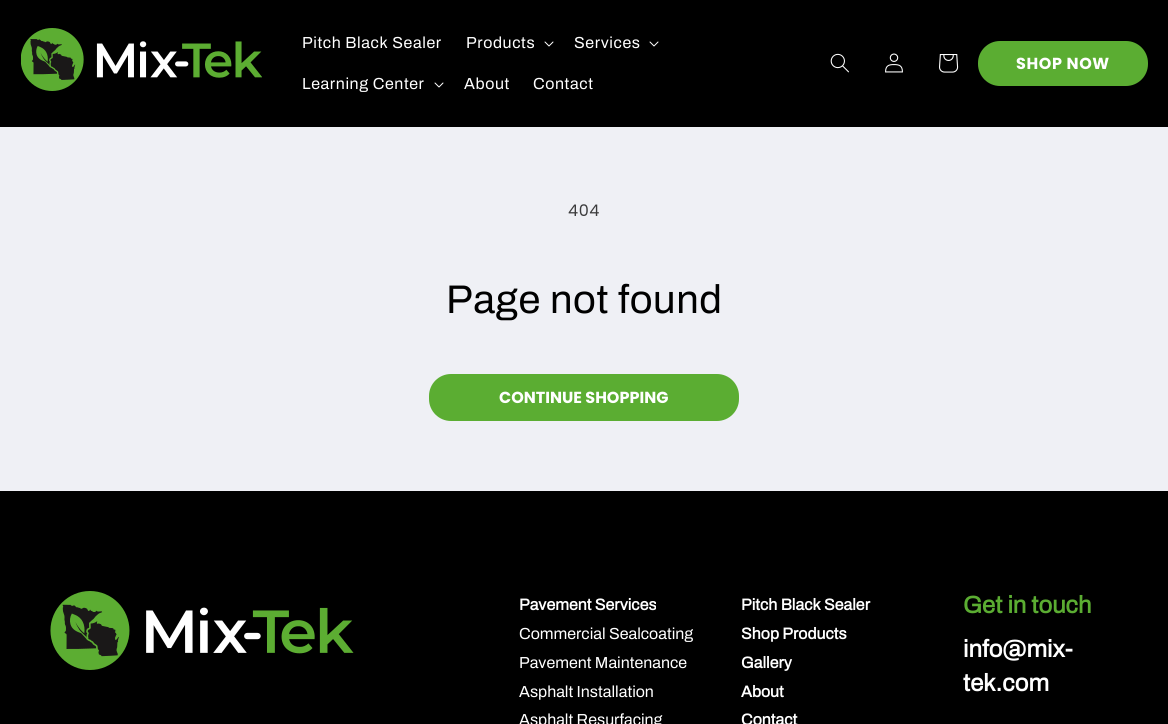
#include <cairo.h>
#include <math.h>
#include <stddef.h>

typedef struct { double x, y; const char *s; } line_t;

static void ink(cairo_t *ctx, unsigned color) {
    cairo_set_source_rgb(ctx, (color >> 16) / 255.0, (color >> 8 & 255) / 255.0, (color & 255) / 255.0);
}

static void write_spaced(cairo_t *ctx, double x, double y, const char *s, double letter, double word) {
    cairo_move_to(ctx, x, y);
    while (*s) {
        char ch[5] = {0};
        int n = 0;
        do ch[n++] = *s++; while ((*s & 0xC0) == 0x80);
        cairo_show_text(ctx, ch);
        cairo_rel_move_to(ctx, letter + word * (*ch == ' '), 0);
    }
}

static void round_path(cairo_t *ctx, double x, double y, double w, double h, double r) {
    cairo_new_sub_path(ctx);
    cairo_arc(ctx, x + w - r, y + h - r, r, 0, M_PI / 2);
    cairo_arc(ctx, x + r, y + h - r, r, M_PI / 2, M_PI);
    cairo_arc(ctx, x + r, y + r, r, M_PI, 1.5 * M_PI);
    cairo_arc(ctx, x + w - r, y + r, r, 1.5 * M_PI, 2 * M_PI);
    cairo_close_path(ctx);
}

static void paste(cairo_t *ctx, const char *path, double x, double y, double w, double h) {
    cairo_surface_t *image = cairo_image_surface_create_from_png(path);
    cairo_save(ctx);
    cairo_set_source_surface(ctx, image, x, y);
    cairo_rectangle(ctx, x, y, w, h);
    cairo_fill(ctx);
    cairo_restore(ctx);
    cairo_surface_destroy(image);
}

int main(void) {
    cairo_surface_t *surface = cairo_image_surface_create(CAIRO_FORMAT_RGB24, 1168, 724);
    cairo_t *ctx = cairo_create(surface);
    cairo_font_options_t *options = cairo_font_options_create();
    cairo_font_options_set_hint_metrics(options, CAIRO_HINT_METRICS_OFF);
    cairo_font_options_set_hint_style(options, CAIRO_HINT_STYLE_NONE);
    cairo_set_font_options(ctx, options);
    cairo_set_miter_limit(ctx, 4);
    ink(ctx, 0xEFF0F5);
    cairo_paint(ctx);
    ink(ctx, 0x000000);
    cairo_rectangle(ctx, 0, 0, 1168, 127);
    cairo_fill(ctx);
    paste(ctx, "media/1.png", 21, 28, 241, 63);
    cairo_select_font_face(ctx, "Archivo", CAIRO_FONT_SLANT_NORMAL, CAIRO_FONT_WEIGHT_NORMAL);
    cairo_set_font_size(ctx, 16);
    ink(ctx, 0xFFFFFF);
    write_spaced(ctx, 302, 48, "Pitch Black Sealer", 0.6, 0);
    write_spaced(ctx, 466, 48, "Products", 0.6, 0);
    paste(ctx, "media/2.png", 544, 41, 10, 6);
    write_spaced(ctx, 574, 48, "Services", 0.6, 0);
    paste(ctx, "media/2.png", 649, 41, 10, 6);
    write_spaced(ctx, 302, 89, "Learning Center", 0.6, 0);
    paste(ctx, "media/2.png", 434, 82, 10, 6);
    write_spaced(ctx, 464, 89, "About", 0.6, 0);
    write_spaced(ctx, 533, 89, "Contact", 0.6, 0);
    paste(ctx, "media/3.png", 830, 53, 19, 20);
    paste(ctx, "media/4.png", 885, 53, 18, 20);
    paste(ctx, "media/5.png", 939, 54, 20, 19);
    ink(ctx, 0x5BAD32);
    round_path(ctx, 978, 41, 170, 45, 22);
    cairo_fill(ctx);
    cairo_select_font_face(ctx, "Poppins", CAIRO_FONT_SLANT_NORMAL, CAIRO_FONT_WEIGHT_BOLD);
    ink(ctx, 0xFFFFFF);
    write_spaced(ctx, 1016, 69, "SHOP NOW", 0.6, 0);
    cairo_select_font_face(ctx, "Poppins", CAIRO_FONT_SLANT_NORMAL, CAIRO_FONT_WEIGHT_NORMAL);
    ink(ctx, 0x3C3C3D);
    write_spaced(ctx, 568, 216, "404", 0.6, 0);
    cairo_select_font_face(ctx, "Archivo", CAIRO_FONT_SLANT_NORMAL, CAIRO_FONT_WEIGHT_NORMAL);
    cairo_set_font_size(ctx, 40);
    ink(ctx, 0x000000);
    write_spaced(ctx, 446, 313, "Page not found", 0.6, 0);
    ink(ctx, 0x5BAD32);
    round_path(ctx, 429, 374, 310, 47, 22);
    cairo_fill(ctx);
    cairo_select_font_face(ctx, "Poppins", CAIRO_FONT_SLANT_NORMAL, CAIRO_FONT_WEIGHT_BOLD);
    cairo_set_font_size(ctx, 16);
    ink(ctx, 0xFFFFFF);
    cairo_move_to(ctx, 499, 403);
    cairo_show_text(ctx, "CONTINUE SHOPPING");
    ink(ctx, 0x000000);
    cairo_rectangle(ctx, 0, 491, 1168, 233);
    cairo_fill(ctx);
    paste(ctx, "media/6.png", 50, 591, 304, 79);
    cairo_select_font_face(ctx, "Archivo", CAIRO_FONT_SLANT_NORMAL, CAIRO_FONT_WEIGHT_BOLD);
    ink(ctx, 0xFFFFFF);
    cairo_move_to(ctx, 519, 610);
    cairo_show_text(ctx, "Pavement Services");
    cairo_select_font_face(ctx, "Archivo", CAIRO_FONT_SLANT_NORMAL, CAIRO_FONT_WEIGHT_NORMAL);
    {
        static const line_t items[] = {
            {519, 639, "Commercial Sealcoating"},
            {519, 668, "Pavement Maintenance"},
            {519, 697, "Asphalt Installation"},
            {519, 725, "Asphalt Resurfacing"},
        };
        for (size_t i = 0; i < sizeof items / sizeof *items; i++) {
            cairo_move_to(ctx, items[i].x, items[i].y);
            cairo_show_text(ctx, items[i].s);
        }
    }
    cairo_select_font_face(ctx, "Archivo", CAIRO_FONT_SLANT_NORMAL, CAIRO_FONT_WEIGHT_BOLD);
    {
        static const line_t items[] = {
            {741, 610, "Pitch Black Sealer"},
            {741, 639, "Shop Products"},
            {741, 668, "Gallery"},
            {741, 697, "About"},
            {741, 725, "Contact"},
        };
        for (size_t i = 0; i < sizeof items / sizeof *items; i++) {
            cairo_move_to(ctx, items[i].x, items[i].y);
            cairo_show_text(ctx, items[i].s);
        }
    }
    cairo_set_font_size(ctx, 24);
    ink(ctx, 0x5BAD32);
    cairo_move_to(ctx, 963, 613);
    cairo_show_text(ctx, "Get in touch");
    ink(ctx, 0xFFFFFF);
    cairo_move_to(ctx, 963, 657);
    cairo_show_text(ctx, "info@mix-");
    cairo_move_to(ctx, 963, 691);
    cairo_show_text(ctx, "tek.com");
    cairo_surface_write_to_png(surface, "image.png");
    cairo_font_options_destroy(options);
    cairo_destroy(ctx);
    cairo_surface_destroy(surface);
    return 0;
}
